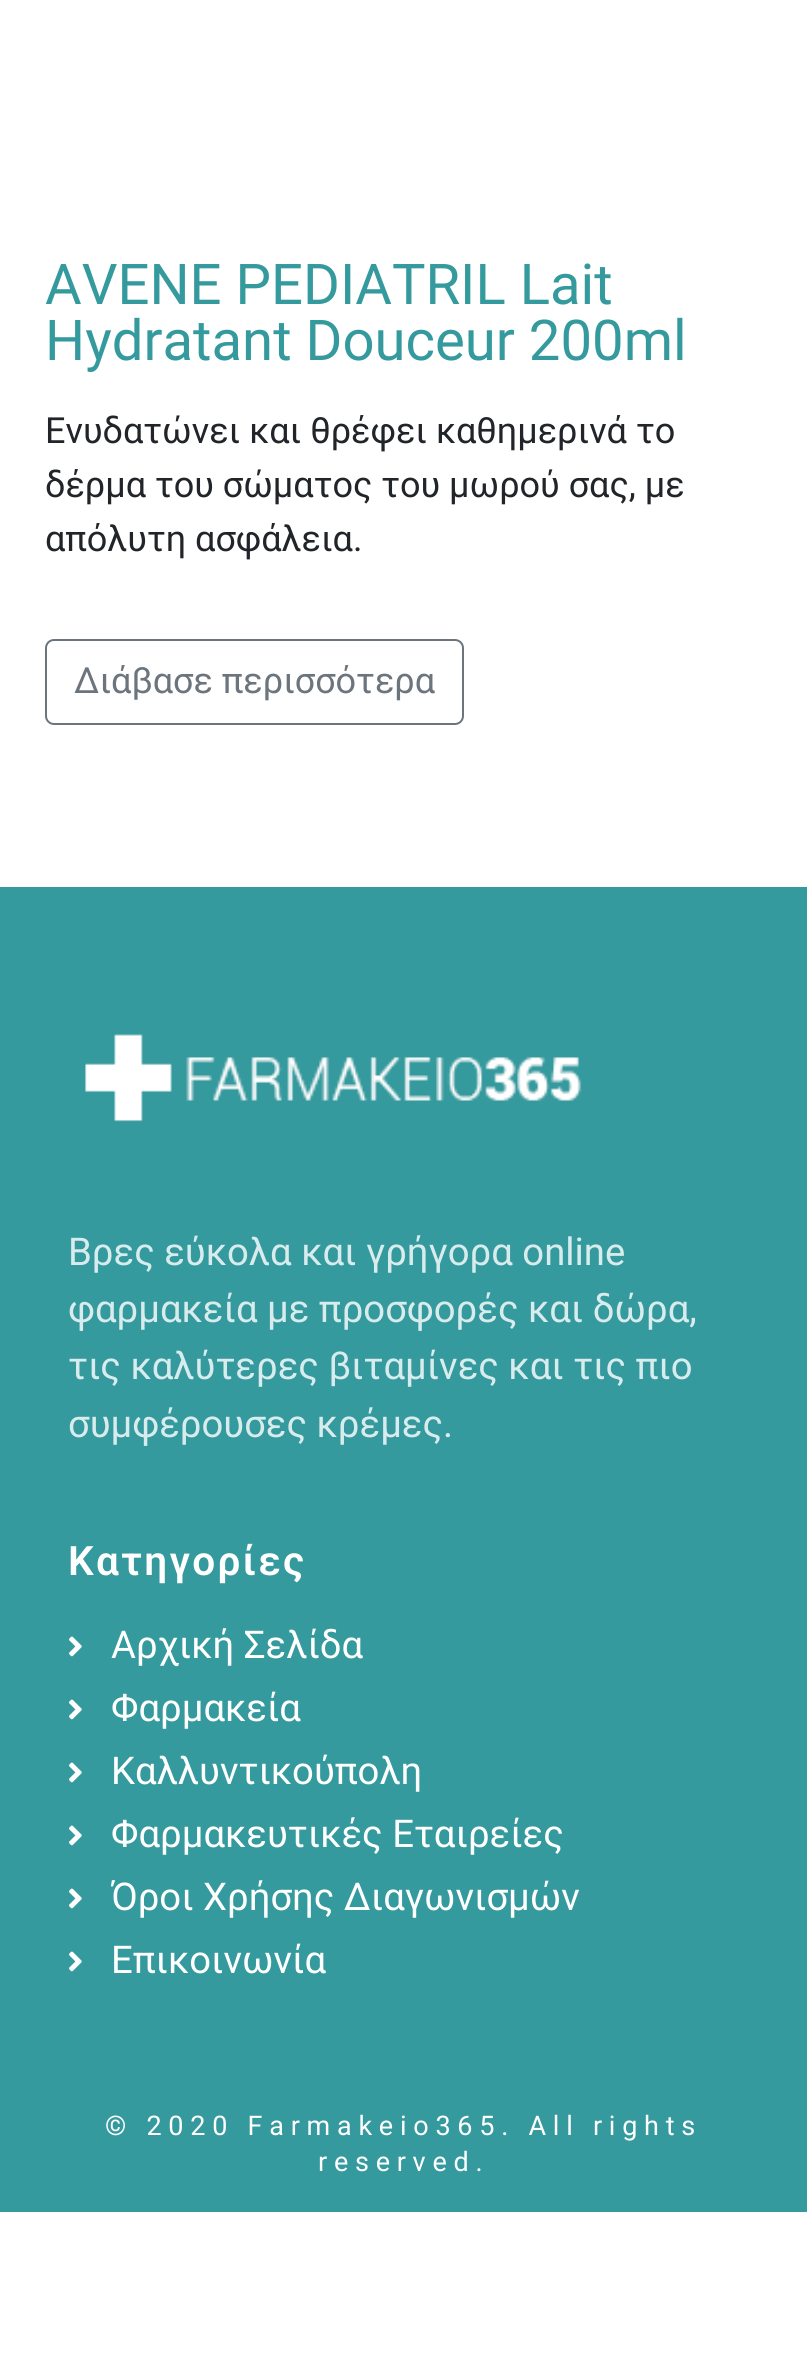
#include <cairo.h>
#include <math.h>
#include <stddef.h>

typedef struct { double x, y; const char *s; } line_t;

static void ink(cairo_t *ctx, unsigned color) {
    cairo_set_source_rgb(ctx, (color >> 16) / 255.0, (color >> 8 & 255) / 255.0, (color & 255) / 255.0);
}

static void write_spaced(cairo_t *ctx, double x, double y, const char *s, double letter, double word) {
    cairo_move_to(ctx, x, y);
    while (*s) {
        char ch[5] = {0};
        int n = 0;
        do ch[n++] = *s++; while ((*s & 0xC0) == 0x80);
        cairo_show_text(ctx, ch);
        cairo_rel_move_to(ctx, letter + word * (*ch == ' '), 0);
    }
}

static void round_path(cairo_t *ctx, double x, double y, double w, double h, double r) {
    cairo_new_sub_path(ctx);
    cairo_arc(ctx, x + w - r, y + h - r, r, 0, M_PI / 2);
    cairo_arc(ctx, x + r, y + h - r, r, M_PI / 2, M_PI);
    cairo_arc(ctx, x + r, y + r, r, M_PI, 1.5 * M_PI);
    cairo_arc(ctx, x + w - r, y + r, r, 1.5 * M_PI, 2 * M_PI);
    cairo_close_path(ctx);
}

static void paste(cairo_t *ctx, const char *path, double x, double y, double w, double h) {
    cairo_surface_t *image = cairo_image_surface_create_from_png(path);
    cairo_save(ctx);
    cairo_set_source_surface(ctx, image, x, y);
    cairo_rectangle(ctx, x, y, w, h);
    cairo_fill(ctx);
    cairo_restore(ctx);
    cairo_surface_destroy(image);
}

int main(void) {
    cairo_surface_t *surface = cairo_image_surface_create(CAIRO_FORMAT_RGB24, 807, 2353);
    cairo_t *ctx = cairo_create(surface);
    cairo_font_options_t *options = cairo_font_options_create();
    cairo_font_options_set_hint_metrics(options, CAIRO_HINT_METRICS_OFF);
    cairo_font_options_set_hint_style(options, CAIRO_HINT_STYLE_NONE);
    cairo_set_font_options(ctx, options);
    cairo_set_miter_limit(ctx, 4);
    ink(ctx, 0xFFFFFF);
    cairo_paint(ctx);
    cairo_select_font_face(ctx, "Roboto", CAIRO_FONT_SLANT_NORMAL, CAIRO_FONT_WEIGHT_NORMAL);
    cairo_set_font_size(ctx, 56.25);
    ink(ctx, 0x359A9E);
    cairo_move_to(ctx, 45, 304);
    cairo_show_text(ctx, "AVENE PEDIATRIL Lait");
    cairo_move_to(ctx, 45, 360);
    cairo_show_text(ctx, "Hydratant Douceur 200ml");
    cairo_set_font_size(ctx, 36);
    ink(ctx, 0x212529);
    {
        static const line_t items[] = {
            {45, 443, "Ενυδατώνει και θρέφει καθημερινά το"},
            {45, 497, "δέρμα του σώματος του μωρού σας, με"},
            {45, 551, "απόλυτη ασφάλεια."},
        };
        for (size_t i = 0; i < sizeof items / sizeof *items; i++) {
            cairo_move_to(ctx, items[i].x, items[i].y);
            cairo_show_text(ctx, items[i].s);
        }
    }
    round_path(ctx, 46, 640, 417, 84, 8);
    ink(ctx, 0x6C757D);
    cairo_stroke(ctx);
    cairo_move_to(ctx, 74, 693);
    cairo_show_text(ctx, "Διάβασε περισσότερα");
    ink(ctx, 0x359A9E);
    cairo_rectangle(ctx, 0, 887, 807, 1325);
    cairo_fill(ctx);
    paste(ctx, "media/1.png", 85, 1034, 497, 88);
    cairo_set_font_size(ctx, 38.25);
    ink(ctx, 0xD9ECED);
    {
        static const line_t items[] = {
            {68, 1265, "Βρες εύκολα και γρήγορα online"},
            {68, 1322, "φαρμακεία με προσφορές και δώρα,"},
            {68, 1379, "τις καλύτερες βιταμίνες και τις πιο"},
            {68, 1437, "συμφέρουσες κρέμες."},
        };
        for (size_t i = 0; i < sizeof items / sizeof *items; i++) {
            cairo_move_to(ctx, items[i].x, items[i].y);
            cairo_show_text(ctx, items[i].s);
        }
    }
    cairo_select_font_face(ctx, "Roboto SemiBold", CAIRO_FONT_SLANT_NORMAL, CAIRO_FONT_WEIGHT_NORMAL);
    cairo_set_font_size(ctx, 40.5);
    ink(ctx, 0xFFFFFF);
    write_spaced(ctx, 68, 1575, "Κατηγορίες", 2.25, 0);
    paste(ctx, "media/2.png", 69, 1636, 13, 21);
    cairo_select_font_face(ctx, "Roboto", CAIRO_FONT_SLANT_NORMAL, CAIRO_FONT_WEIGHT_NORMAL);
    cairo_set_font_size(ctx, 38.25);
    cairo_move_to(ctx, 111, 1658);
    cairo_show_text(ctx, "Αρχική Σελίδα");
    paste(ctx, "media/2.png", 69, 1699, 13, 21);
    cairo_move_to(ctx, 111, 1721);
    cairo_show_text(ctx, "Φαρμακεία");
    paste(ctx, "media/2.png", 69, 1762, 13, 21);
    cairo_move_to(ctx, 111, 1784);
    cairo_show_text(ctx, "Καλλυντικούπολη");
    paste(ctx, "media/2.png", 69, 1825, 13, 21);
    cairo_move_to(ctx, 111, 1847);
    cairo_show_text(ctx, "Φαρμακευτικές Εταιρείες");
    paste(ctx, "media/2.png", 69, 1888, 13, 21);
    cairo_move_to(ctx, 111, 1910);
    cairo_show_text(ctx, "Όροι Χρήσης Διαγωνισμών");
    paste(ctx, "media/2.png", 69, 1951, 13, 21);
    cairo_move_to(ctx, 111, 1973);
    cairo_show_text(ctx, "Επικοινωνία");
    cairo_set_font_size(ctx, 27);
    write_spaced(ctx, 105, 2135, "© 2020 Farmakeio365. All rights", 6.75, 0);
    write_spaced(ctx, 318, 2171, "reserved.", 6.75, 0);
    cairo_surface_write_to_png(surface, "image.png");
    cairo_font_options_destroy(options);
    cairo_destroy(ctx);
    cairo_surface_destroy(surface);
    return 0;
}
